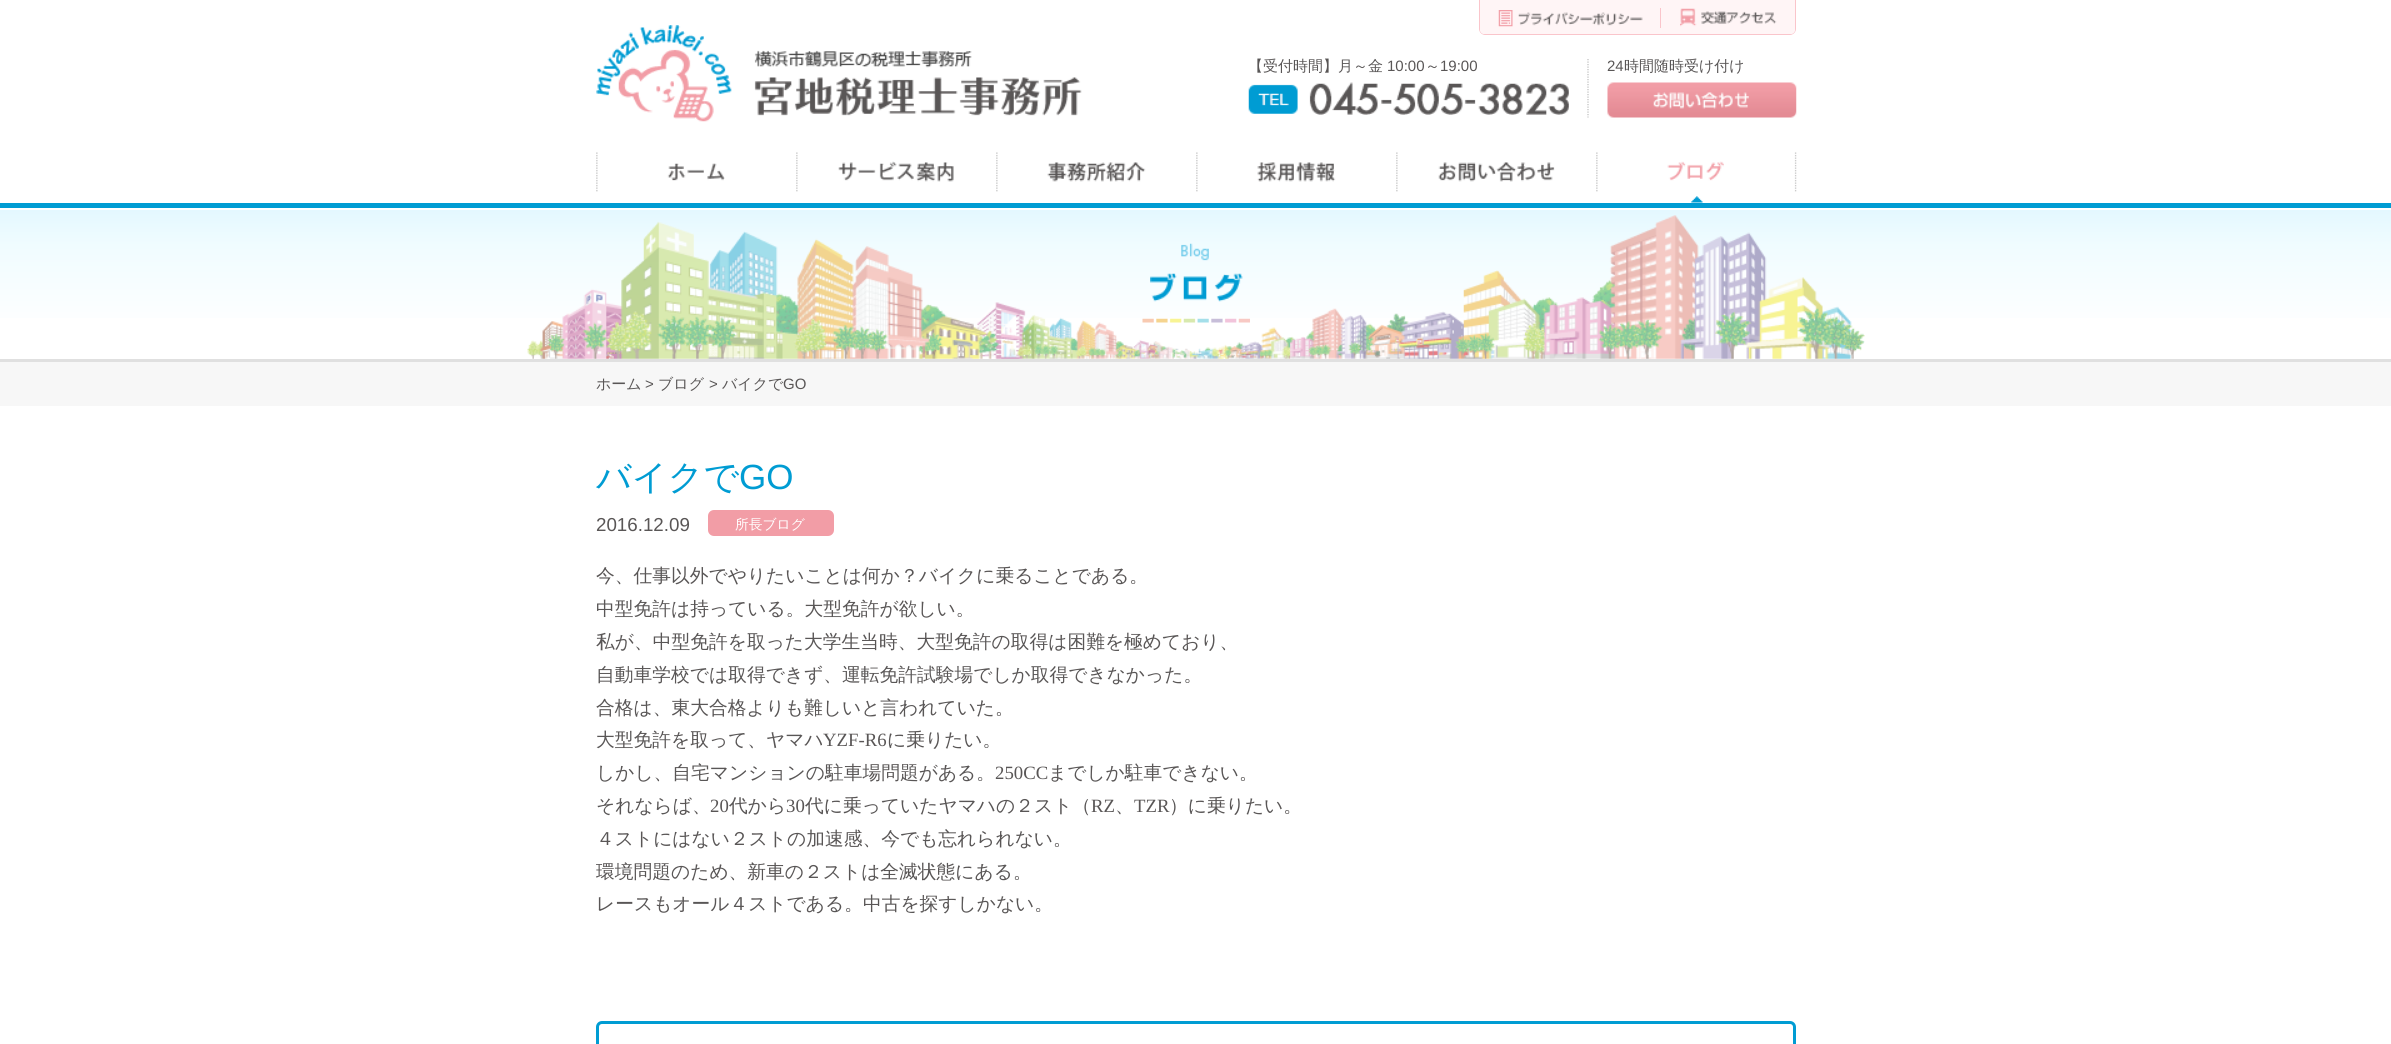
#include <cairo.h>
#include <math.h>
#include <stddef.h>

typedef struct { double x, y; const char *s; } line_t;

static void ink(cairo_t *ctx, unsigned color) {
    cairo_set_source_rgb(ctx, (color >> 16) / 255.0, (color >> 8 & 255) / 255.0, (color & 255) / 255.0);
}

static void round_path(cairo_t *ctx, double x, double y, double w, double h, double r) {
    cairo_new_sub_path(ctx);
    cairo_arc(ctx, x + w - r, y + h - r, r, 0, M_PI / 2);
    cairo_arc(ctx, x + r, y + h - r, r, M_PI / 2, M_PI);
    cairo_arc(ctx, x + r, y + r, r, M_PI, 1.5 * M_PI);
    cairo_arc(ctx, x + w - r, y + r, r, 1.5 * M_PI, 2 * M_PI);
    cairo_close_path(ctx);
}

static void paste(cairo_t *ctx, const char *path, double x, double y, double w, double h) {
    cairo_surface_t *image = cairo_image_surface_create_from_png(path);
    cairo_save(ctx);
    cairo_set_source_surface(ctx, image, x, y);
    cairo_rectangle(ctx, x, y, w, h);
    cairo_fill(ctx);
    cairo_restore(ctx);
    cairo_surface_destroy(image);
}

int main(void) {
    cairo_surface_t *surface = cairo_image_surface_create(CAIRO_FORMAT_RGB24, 2391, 1044);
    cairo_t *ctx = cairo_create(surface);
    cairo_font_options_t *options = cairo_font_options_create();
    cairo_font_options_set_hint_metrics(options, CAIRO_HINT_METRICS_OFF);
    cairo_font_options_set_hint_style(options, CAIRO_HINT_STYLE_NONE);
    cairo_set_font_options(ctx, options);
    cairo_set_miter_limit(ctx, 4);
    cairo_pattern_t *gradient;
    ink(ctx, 0xFFFFFF);
    cairo_paint(ctx);
    ink(ctx, 0x009CD3);
    cairo_rectangle(ctx, 0, 203, 2391, 5);
    cairo_fill(ctx);
    ink(ctx, 0xFAC5CB);
    cairo_set_fill_rule(ctx, CAIRO_FILL_RULE_EVEN_ODD);
    cairo_new_path(ctx);
    cairo_move_to(ctx, 1479, 0);
    cairo_line_to(ctx, 1796, 0);
    cairo_line_to(ctx, 1796, 29);
    cairo_curve_to(ctx, 1796, 32, 1793, 35, 1790, 35);
    cairo_line_to(ctx, 1485, 35);
    cairo_curve_to(ctx, 1482, 35, 1479, 32, 1479, 29);
    cairo_close_path(ctx);
    cairo_move_to(ctx, 1480, 0);
    cairo_line_to(ctx, 1795, 0);
    cairo_line_to(ctx, 1795, 29);
    cairo_curve_to(ctx, 1795, 32, 1793, 34, 1790, 34);
    cairo_line_to(ctx, 1485, 34);
    cairo_curve_to(ctx, 1482, 34, 1480, 32, 1480, 29);
    cairo_close_path(ctx);
    cairo_fill(ctx);
    ink(ctx, 0xFFF5F6);
    cairo_new_path(ctx);
    cairo_move_to(ctx, 1480, 0);
    cairo_line_to(ctx, 1661, 0);
    cairo_line_to(ctx, 1661, 34);
    cairo_line_to(ctx, 1485, 34);
    cairo_curve_to(ctx, 1482, 34, 1480, 32, 1480, 29);
    cairo_close_path(ctx);
    cairo_fill(ctx);
    paste(ctx, "media/1.png", 1498, 10, 145, 17);
    ink(ctx, 0xFAC5CB);
    cairo_rectangle(ctx, 1660, 8, 1, 20);
    cairo_fill(ctx);
    ink(ctx, 0xFFF5F6);
    cairo_new_path(ctx);
    cairo_move_to(ctx, 1661, 0);
    cairo_line_to(ctx, 1795, 0);
    cairo_line_to(ctx, 1795, 29);
    cairo_curve_to(ctx, 1795, 32, 1793, 34, 1790, 34);
    cairo_line_to(ctx, 1661, 34);
    cairo_close_path(ctx);
    cairo_fill(ctx);
    paste(ctx, "media/2.png", 1680, 8, 97, 19);
    paste(ctx, "media/3.png", 596, 25, 486, 97);
    cairo_select_font_face(ctx, "WenQuanYi Zen Hei Medium", CAIRO_FONT_SLANT_NORMAL, CAIRO_FONT_WEIGHT_NORMAL);
    cairo_set_font_size(ctx, 15);
    ink(ctx, 0x595656);
    cairo_move_to(ctx, 1248, 71);
    cairo_show_text(ctx, "【受付時間】月～金");
    cairo_select_font_face(ctx, "Liberation Sans", CAIRO_FONT_SLANT_NORMAL, CAIRO_FONT_WEIGHT_NORMAL);
    cairo_move_to(ctx, 1387, 71);
    cairo_show_text(ctx, "10:00");
    cairo_select_font_face(ctx, "WenQuanYi Zen Hei Medium", CAIRO_FONT_SLANT_NORMAL, CAIRO_FONT_WEIGHT_NORMAL);
    cairo_move_to(ctx, 1425, 71);
    cairo_show_text(ctx, "～");
    cairo_select_font_face(ctx, "Liberation Sans", CAIRO_FONT_SLANT_NORMAL, CAIRO_FONT_WEIGHT_NORMAL);
    cairo_move_to(ctx, 1440, 71);
    cairo_show_text(ctx, "19:00");
    paste(ctx, "media/4.png", 1248, 82, 321, 33);
    cairo_new_path(ctx);
    cairo_move_to(ctx, 1588, 59);
    cairo_line_to(ctx, 1588, 117.5);
    ink(ctx, 0xBDBDBD);
    cairo_set_line_width(ctx, 1.2);
    cairo_set_dash(ctx, (double[]){1.25, 1.25}, 2, 0);
    cairo_stroke(ctx);
    ink(ctx, 0x595656);
    cairo_move_to(ctx, 1607, 71);
    cairo_show_text(ctx, "24");
    cairo_select_font_face(ctx, "WenQuanYi Zen Hei Medium", CAIRO_FONT_SLANT_NORMAL, CAIRO_FONT_WEIGHT_NORMAL);
    cairo_move_to(ctx, 1624, 71);
    cairo_show_text(ctx, "時間随時受け付け");
    paste(ctx, "media/5.png", 1607, 82, 190, 36);
    paste(ctx, "media/6.png", 596, 152, 129, 40);
    paste(ctx, "media/7.png", 796, 152, 158, 40);
    paste(ctx, "media/8.png", 996, 152, 150, 40);
    paste(ctx, "media/9.png", 1196, 152, 140, 40);
    paste(ctx, "media/10.png", 1396, 152, 159, 40);
    paste(ctx, "media/11.png", 1596, 152, 201, 51);
    gradient = cairo_pattern_create_linear(1196, 210, 1196, 359);
    cairo_pattern_add_color_stop_rgba(gradient, 0, 0.894, 0.973, 1, 1);
    cairo_pattern_add_color_stop_rgba(gradient, 0.24, 0.941, 0.988, 1, 1);
    cairo_pattern_add_color_stop_rgba(gradient, 0.82, 1, 1, 1, 1);
    cairo_pattern_add_color_stop_rgba(gradient, 1, 1, 1, 1, 1);
    cairo_set_source(ctx, gradient);
    cairo_pattern_destroy(gradient);
    cairo_rectangle(ctx, 0, 210, 2391, 108);
    cairo_fill(ctx);
    paste(ctx, "media/13.png", 1150, 243, 93, 59);
    paste(ctx, "media/14.png", 1142, 318, 108, 5);
    paste(ctx, "media/12.png", 527, 215, 1338, 144);
    ink(ctx, 0xF7F7F7);
    cairo_rectangle(ctx, 0, 362, 2391, 44);
    cairo_fill(ctx);
    ink(ctx, 0xE0E0E0);
    cairo_rectangle(ctx, 0, 359, 2391, 3);
    cairo_fill(ctx);
    ink(ctx, 0x595656);
    cairo_move_to(ctx, 596, 389);
    cairo_show_text(ctx, "ホーム");
    cairo_select_font_face(ctx, "Liberation Sans", CAIRO_FONT_SLANT_NORMAL, CAIRO_FONT_WEIGHT_NORMAL);
    cairo_move_to(ctx, 645, 389);
    cairo_show_text(ctx, ">");
    cairo_select_font_face(ctx, "WenQuanYi Zen Hei Medium", CAIRO_FONT_SLANT_NORMAL, CAIRO_FONT_WEIGHT_NORMAL);
    cairo_move_to(ctx, 658, 389);
    cairo_show_text(ctx, "ブログ");
    cairo_select_font_face(ctx, "Liberation Sans", CAIRO_FONT_SLANT_NORMAL, CAIRO_FONT_WEIGHT_NORMAL);
    cairo_move_to(ctx, 709, 389);
    cairo_show_text(ctx, ">");
    cairo_select_font_face(ctx, "WenQuanYi Zen Hei Medium", CAIRO_FONT_SLANT_NORMAL, CAIRO_FONT_WEIGHT_NORMAL);
    cairo_move_to(ctx, 722, 389);
    cairo_show_text(ctx, "バイクで");
    cairo_select_font_face(ctx, "Liberation Sans", CAIRO_FONT_SLANT_NORMAL, CAIRO_FONT_WEIGHT_NORMAL);
    cairo_move_to(ctx, 783, 389);
    cairo_show_text(ctx, "GO");
    cairo_select_font_face(ctx, "WenQuanYi Zen Hei Medium", CAIRO_FONT_SLANT_NORMAL, CAIRO_FONT_WEIGHT_NORMAL);
    cairo_set_font_size(ctx, 35);
    ink(ctx, 0x009CD3);
    cairo_move_to(ctx, 596, 489);
    cairo_show_text(ctx, "バイクで");
    cairo_select_font_face(ctx, "Liberation Sans", CAIRO_FONT_SLANT_NORMAL, CAIRO_FONT_WEIGHT_NORMAL);
    cairo_move_to(ctx, 739, 489);
    cairo_show_text(ctx, "GO");
    cairo_set_font_size(ctx, 18.75);
    ink(ctx, 0x595656);
    cairo_move_to(ctx, 596, 531);
    cairo_show_text(ctx, "2016.12.09");
    ink(ctx, 0xF29DA6);
    round_path(ctx, 708, 510, 126, 26, 6);
    cairo_fill(ctx);
    cairo_select_font_face(ctx, "WenQuanYi Zen Hei Medium", CAIRO_FONT_SLANT_NORMAL, CAIRO_FONT_WEIGHT_NORMAL);
    cairo_set_font_size(ctx, 13.75);
    ink(ctx, 0xFFFFFF);
    cairo_move_to(ctx, 735, 529);
    cairo_show_text(ctx, "所長ブログ");
    cairo_set_font_size(ctx, 18.75);
    ink(ctx, 0x595656);
    {
        static const line_t items[] = {
            {596, 582, "今、仕事以外でやりたいことは何か？バイクに乗ることである。"},
            {596, 615, "中型免許は持っている。大型免許が欲しい。"},
            {596, 648, "私が、中型免許を取った大学生当時、大型免許の取得は困難を極めており、"},
            {596, 681, "自動車学校では取得できず、運転免許試験場でしか取得できなかった。"},
            {596, 714, "合格は、東大合格よりも難しいと言われていた。"},
            {596, 746, "大型免許を取って、ヤマハ"},
        };
        for (size_t i = 0; i < sizeof items / sizeof *items; i++) {
            cairo_move_to(ctx, items[i].x, items[i].y);
            cairo_show_text(ctx, items[i].s);
        }
    }
    cairo_select_font_face(ctx, "Liberation Serif", CAIRO_FONT_SLANT_NORMAL, CAIRO_FONT_WEIGHT_NORMAL);
    cairo_move_to(ctx, 823, 746);
    cairo_show_text(ctx, "YZF-R6");
    cairo_select_font_face(ctx, "WenQuanYi Zen Hei Medium", CAIRO_FONT_SLANT_NORMAL, CAIRO_FONT_WEIGHT_NORMAL);
    cairo_move_to(ctx, 887, 746);
    cairo_show_text(ctx, "に乗りたい。");
    cairo_move_to(ctx, 596, 779);
    cairo_show_text(ctx, "しかし、自宅マンションの駐車場問題がある。");
    cairo_select_font_face(ctx, "Liberation Serif", CAIRO_FONT_SLANT_NORMAL, CAIRO_FONT_WEIGHT_NORMAL);
    cairo_move_to(ctx, 995, 779);
    cairo_show_text(ctx, "250CC");
    cairo_select_font_face(ctx, "WenQuanYi Zen Hei Medium", CAIRO_FONT_SLANT_NORMAL, CAIRO_FONT_WEIGHT_NORMAL);
    cairo_move_to(ctx, 1048, 779);
    cairo_show_text(ctx, "までしか駐車できない。");
    cairo_move_to(ctx, 596, 812);
    cairo_show_text(ctx, "それならば、");
    cairo_select_font_face(ctx, "Liberation Serif", CAIRO_FONT_SLANT_NORMAL, CAIRO_FONT_WEIGHT_NORMAL);
    cairo_move_to(ctx, 710, 812);
    cairo_show_text(ctx, "20");
    cairo_select_font_face(ctx, "WenQuanYi Zen Hei Medium", CAIRO_FONT_SLANT_NORMAL, CAIRO_FONT_WEIGHT_NORMAL);
    cairo_move_to(ctx, 729, 812);
    cairo_show_text(ctx, "代から");
    cairo_select_font_face(ctx, "Liberation Serif", CAIRO_FONT_SLANT_NORMAL, CAIRO_FONT_WEIGHT_NORMAL);
    cairo_move_to(ctx, 786, 812);
    cairo_show_text(ctx, "30");
    cairo_select_font_face(ctx, "WenQuanYi Zen Hei Medium", CAIRO_FONT_SLANT_NORMAL, CAIRO_FONT_WEIGHT_NORMAL);
    cairo_move_to(ctx, 805, 812);
    cairo_show_text(ctx, "代に乗っていたヤマハの２スト（");
    cairo_select_font_face(ctx, "Liberation Serif", CAIRO_FONT_SLANT_NORMAL, CAIRO_FONT_WEIGHT_NORMAL);
    cairo_move_to(ctx, 1091, 812);
    cairo_show_text(ctx, "RZ");
    cairo_move_to(ctx, 1134, 812);
    cairo_show_text(ctx, "TZR");
    cairo_select_font_face(ctx, "WenQuanYi Zen Hei Medium", CAIRO_FONT_SLANT_NORMAL, CAIRO_FONT_WEIGHT_NORMAL);
    {
        static const line_t items[] = {
            {1169, 812, "）に乗りたい。"},
            {1115, 812, "、"},
            {596, 845, "４ストにはない２ストの加速感、今でも忘れられない。"},
            {596, 878, "環境問題のため、新車の２ストは全滅状態にある。"},
            {596, 910, "レースもオール４ストである。中古を探すしかない。"},
        };
        for (size_t i = 0; i < sizeof items / sizeof *items; i++) {
            cairo_move_to(ctx, items[i].x, items[i].y);
            cairo_show_text(ctx, items[i].s);
        }
    }
    round_path(ctx, 597.5, 1022.5, 1197, 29, 4.5);
    ink(ctx, 0x009CD3);
    cairo_set_line_width(ctx, 3);
    cairo_set_dash(ctx, NULL, 0, 0);
    cairo_stroke(ctx);
    cairo_surface_write_to_png(surface, "image.png");
    cairo_font_options_destroy(options);
    cairo_destroy(ctx);
    cairo_surface_destroy(surface);
    return 0;
}
